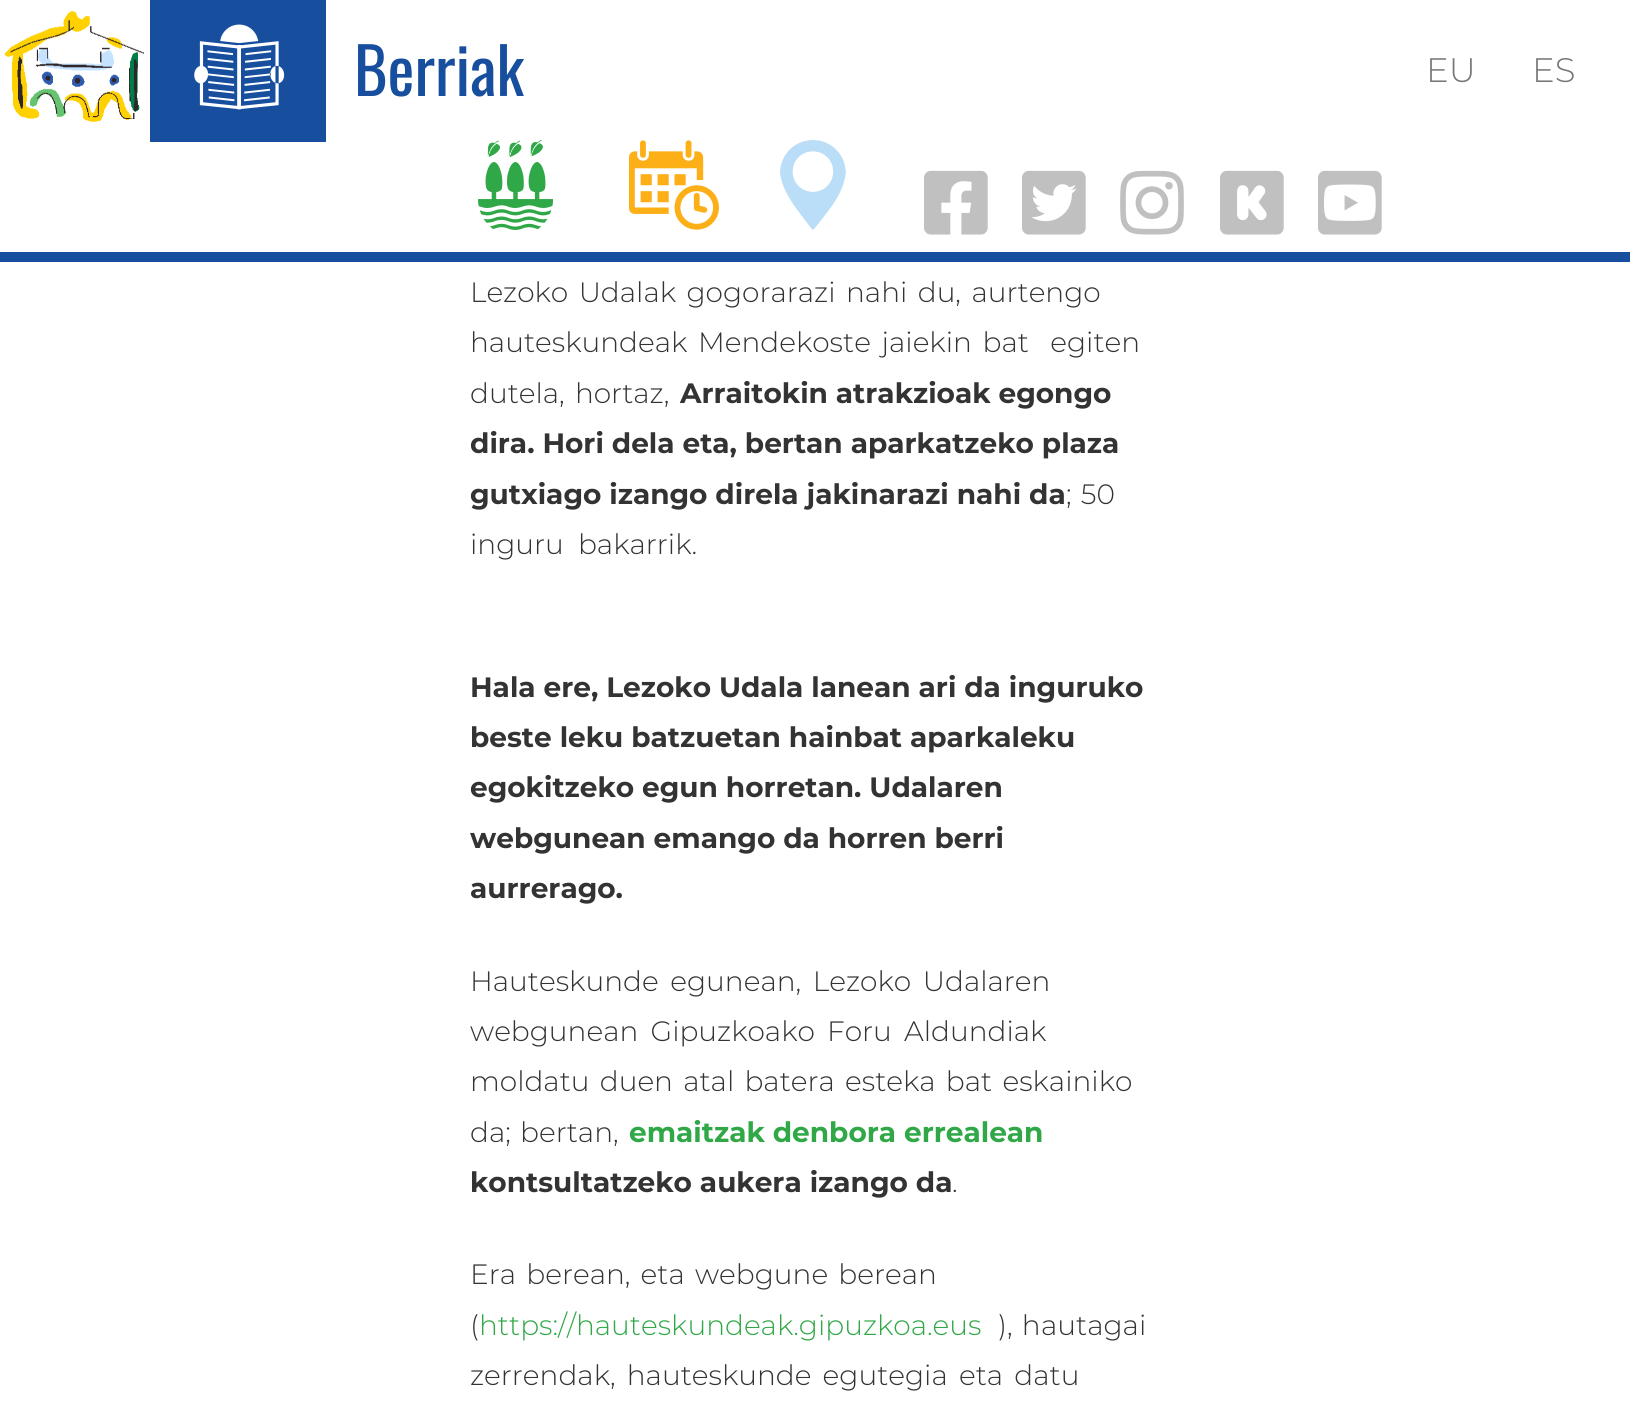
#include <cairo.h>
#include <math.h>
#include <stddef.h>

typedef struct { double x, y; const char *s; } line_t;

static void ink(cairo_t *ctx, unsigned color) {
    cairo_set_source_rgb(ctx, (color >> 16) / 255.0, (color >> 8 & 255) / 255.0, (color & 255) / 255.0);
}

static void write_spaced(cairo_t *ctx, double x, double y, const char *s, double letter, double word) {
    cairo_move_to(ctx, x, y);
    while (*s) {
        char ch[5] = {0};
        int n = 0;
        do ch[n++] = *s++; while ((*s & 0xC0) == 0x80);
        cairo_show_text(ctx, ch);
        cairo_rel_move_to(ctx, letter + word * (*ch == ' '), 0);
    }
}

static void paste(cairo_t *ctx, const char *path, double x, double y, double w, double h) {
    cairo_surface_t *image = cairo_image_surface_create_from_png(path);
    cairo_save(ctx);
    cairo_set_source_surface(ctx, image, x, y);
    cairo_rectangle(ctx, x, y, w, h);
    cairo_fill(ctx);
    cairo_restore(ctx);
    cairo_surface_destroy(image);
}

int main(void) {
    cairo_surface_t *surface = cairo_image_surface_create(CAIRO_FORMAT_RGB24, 1630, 1421);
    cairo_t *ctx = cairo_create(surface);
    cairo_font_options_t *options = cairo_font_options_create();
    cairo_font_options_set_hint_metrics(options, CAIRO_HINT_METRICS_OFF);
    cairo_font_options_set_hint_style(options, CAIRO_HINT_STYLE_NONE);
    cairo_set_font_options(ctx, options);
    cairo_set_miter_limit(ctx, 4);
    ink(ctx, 0xFFFFFF);
    cairo_paint(ctx);
    ink(ctx, 0x174F9E);
    cairo_rectangle(ctx, 0, 252, 1630, 10);
    cairo_fill(ctx);
    paste(ctx, "media/1.png", 5, 11, 139, 111);
    cairo_rectangle(ctx, 150, 0, 176, 142);
    cairo_fill(ctx);
    cairo_select_font_face(ctx, "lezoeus", CAIRO_FONT_SLANT_NORMAL, CAIRO_FONT_WEIGHT_NORMAL);
    cairo_set_font_size(ctx, 90);
    ink(ctx, 0xFFFFFF);
    cairo_move_to(ctx, 194, 112);
    cairo_show_text(ctx, "T");
    cairo_select_font_face(ctx, "Oswald", CAIRO_FONT_SLANT_NORMAL, CAIRO_FONT_WEIGHT_NORMAL);
    cairo_set_font_size(ctx, 64);
    ink(ctx, 0x174F9E);
    cairo_move_to(ctx, 354, 96);
    cairo_show_text(ctx, "Berriak");
    cairo_select_font_face(ctx, "Montserrat Light", CAIRO_FONT_SLANT_NORMAL, CAIRO_FONT_WEIGHT_NORMAL);
    cairo_set_font_size(ctx, 34);
    ink(ctx, 0x777777);
    cairo_move_to(ctx, 1426, 82);
    cairo_show_text(ctx, "EU");
    cairo_move_to(ctx, 1532, 82);
    cairo_show_text(ctx, "ES");
    cairo_select_font_face(ctx, "lezoeus", CAIRO_FONT_SLANT_NORMAL, CAIRO_FONT_WEIGHT_NORMAL);
    cairo_set_font_size(ctx, 90);
    ink(ctx, 0x30A847);
    cairo_move_to(ctx, 478, 230);
    cairo_show_text(ctx, "I");
    ink(ctx, 0xFCAF17);
    cairo_move_to(ctx, 629, 230);
    cairo_show_text(ctx, "D");
    ink(ctx, 0xBADEF7);
    cairo_move_to(ctx, 780, 230);
    cairo_show_text(ctx, "O");
    paste(ctx, "media/2.png", 924, 170, 64, 65);
    paste(ctx, "media/3.png", 1022, 170, 64, 65);
    paste(ctx, "media/4.png", 1120, 170, 64, 65);
    paste(ctx, "media/5.png", 1220, 170, 64, 65);
    paste(ctx, "media/6.png", 1318, 170, 64, 65);
    cairo_select_font_face(ctx, "Montserrat Light", CAIRO_FONT_SLANT_NORMAL, CAIRO_FONT_WEIGHT_NORMAL);
    cairo_set_font_size(ctx, 28);
    ink(ctx, 0x333333);
    write_spaced(ctx, 470, 302, "Lezoko Udalak gogorarazi nahi du, aurtengo", 0, 3.25);
    write_spaced(ctx, 470, 352, "hauteskundeak Mendekoste jaiekin bat  egiten", 0, 3.5);
    write_spaced(ctx, 470, 403, "dutela, hortaz,", 0, 3);
    cairo_select_font_face(ctx, "Montserrat", CAIRO_FONT_SLANT_NORMAL, CAIRO_FONT_WEIGHT_BOLD);
    {
        static const line_t items[] = {
            {680, 403, "Arraitokin atrakzioak egongo"},
            {470, 453, "dira. Hori dela eta, bertan aparkatzeko plaza"},
            {470, 504, "gutxiago izango direla jakinarazi nahi da"},
        };
        for (size_t i = 0; i < sizeof items / sizeof *items; i++) {
            cairo_move_to(ctx, items[i].x, items[i].y);
            cairo_show_text(ctx, items[i].s);
        }
    }
    cairo_select_font_face(ctx, "Montserrat Light", CAIRO_FONT_SLANT_NORMAL, CAIRO_FONT_WEIGHT_NORMAL);
    write_spaced(ctx, 1066, 504, "; 50", 0, 2);
    write_spaced(ctx, 470, 554, "inguru bakarrik.", 0, 7);
    cairo_select_font_face(ctx, "Montserrat", CAIRO_FONT_SLANT_NORMAL, CAIRO_FONT_WEIGHT_BOLD);
    {
        static const line_t items[] = {
            {470, 697, "Hala ere, Lezoko Udala lanean ari da inguruko"},
            {470, 747, "beste leku batzuetan hainbat aparkaleku"},
            {470, 797, "egokitzeko egun horretan. Udalaren"},
            {470, 848, "webgunean emango da horren berri"},
            {470, 898, "aurrerago."},
        };
        for (size_t i = 0; i < sizeof items / sizeof *items; i++) {
            cairo_move_to(ctx, items[i].x, items[i].y);
            cairo_show_text(ctx, items[i].s);
        }
    }
    cairo_select_font_face(ctx, "Montserrat Light", CAIRO_FONT_SLANT_NORMAL, CAIRO_FONT_WEIGHT_NORMAL);
    write_spaced(ctx, 470, 991, "Hauteskunde egunean, Lezoko Udalaren", 0, 4.5);
    write_spaced(ctx, 470, 1041, "webgunean Gipuzkoako Foru Aldundiak", 0, 5);
    write_spaced(ctx, 470, 1091, "moldatu duen atal batera esteka bat eskainiko", 0, 3);
    write_spaced(ctx, 470, 1142, "da; bertan,", 0, 2);
    cairo_select_font_face(ctx, "Montserrat", CAIRO_FONT_SLANT_NORMAL, CAIRO_FONT_WEIGHT_BOLD);
    ink(ctx, 0x30A847);
    cairo_move_to(ctx, 629, 1142);
    cairo_show_text(ctx, "emaitzak denbora errealean");
    ink(ctx, 0x333333);
    cairo_move_to(ctx, 470, 1192);
    cairo_show_text(ctx, "kontsultatzeko aukera izango da");
    cairo_select_font_face(ctx, "Montserrat Light", CAIRO_FONT_SLANT_NORMAL, CAIRO_FONT_WEIGHT_NORMAL);
    cairo_move_to(ctx, 952, 1192);
    cairo_show_text(ctx, ".");
    write_spaced(ctx, 470, 1284, "Era berean, eta webgune berean", 0, 3);
    cairo_move_to(ctx, 470, 1335);
    cairo_show_text(ctx, "(");
    ink(ctx, 0x30A847);
    cairo_move_to(ctx, 479, 1335);
    cairo_show_text(ctx, "https://hauteskundeak.gipuzkoa.eus");
    ink(ctx, 0x333333);
    write_spaced(ctx, 998, 1335, "), h", 0, 2);
    cairo_move_to(ctx, 1041, 1335);
    cairo_show_text(ctx, "autagai");
    write_spaced(ctx, 470, 1385, "zerrendak, hauteskunde egutegia eta datu", 0, 4);
    cairo_surface_write_to_png(surface, "image.png");
    cairo_font_options_destroy(options);
    cairo_destroy(ctx);
    cairo_surface_destroy(surface);
    return 0;
}
